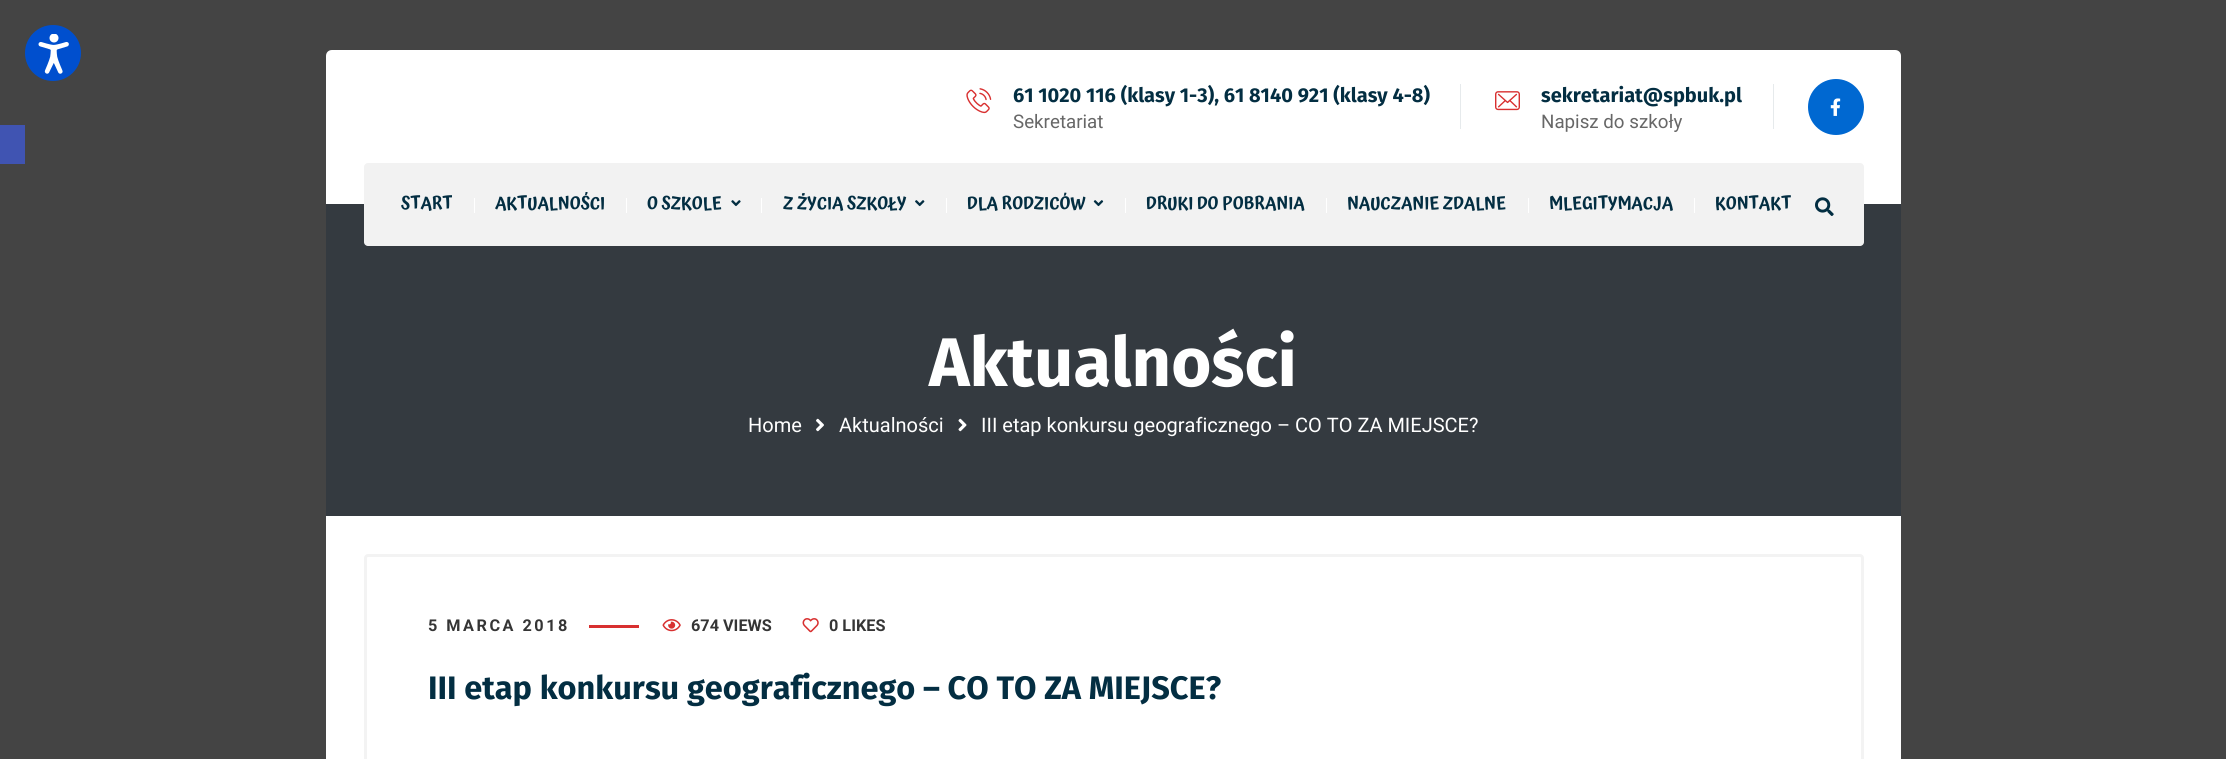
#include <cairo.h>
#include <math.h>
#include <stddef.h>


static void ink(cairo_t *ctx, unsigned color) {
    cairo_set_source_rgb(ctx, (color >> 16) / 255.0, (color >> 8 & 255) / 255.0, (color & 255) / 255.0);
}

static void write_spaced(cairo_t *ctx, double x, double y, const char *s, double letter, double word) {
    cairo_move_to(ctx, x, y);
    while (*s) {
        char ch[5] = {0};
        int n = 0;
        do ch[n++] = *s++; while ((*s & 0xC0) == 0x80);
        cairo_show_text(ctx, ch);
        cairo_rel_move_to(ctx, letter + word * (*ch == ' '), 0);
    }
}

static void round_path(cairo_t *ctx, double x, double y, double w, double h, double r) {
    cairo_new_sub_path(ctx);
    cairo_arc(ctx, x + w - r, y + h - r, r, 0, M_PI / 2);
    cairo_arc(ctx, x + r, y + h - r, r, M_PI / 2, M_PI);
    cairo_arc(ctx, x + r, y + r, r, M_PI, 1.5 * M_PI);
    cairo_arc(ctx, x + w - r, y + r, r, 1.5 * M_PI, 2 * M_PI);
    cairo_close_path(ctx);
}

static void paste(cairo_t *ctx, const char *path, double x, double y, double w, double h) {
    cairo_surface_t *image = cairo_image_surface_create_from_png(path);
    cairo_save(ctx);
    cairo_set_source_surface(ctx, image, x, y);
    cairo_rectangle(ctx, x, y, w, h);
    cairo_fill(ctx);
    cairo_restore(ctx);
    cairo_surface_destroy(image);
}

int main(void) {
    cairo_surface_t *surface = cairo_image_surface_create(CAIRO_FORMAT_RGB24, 2226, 759);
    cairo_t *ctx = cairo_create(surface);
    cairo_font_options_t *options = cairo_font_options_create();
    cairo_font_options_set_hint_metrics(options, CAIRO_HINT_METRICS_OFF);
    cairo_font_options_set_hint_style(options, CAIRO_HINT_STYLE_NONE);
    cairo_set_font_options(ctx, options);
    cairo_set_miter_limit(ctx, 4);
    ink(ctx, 0x444444);
    cairo_paint(ctx);
    ink(ctx, 0x004FCE);
    cairo_arc(ctx, 53, 53, 28, 0, 2 * M_PI);
    cairo_fill(ctx);
    paste(ctx, "media/1.png", 38, 34, 31, 40);
    ink(ctx, 0x4054B2);
    cairo_rectangle(ctx, 0, 125, 25, 39);
    cairo_fill(ctx);
    ink(ctx, 0xFFFFFF);
    cairo_new_path(ctx);
    cairo_move_to(ctx, 332, 50);
    cairo_line_to(ctx, 1895, 50);
    cairo_curve_to(ctx, 1898.5, 50, 1901, 52.5, 1901, 56);
    cairo_line_to(ctx, 1901, 204);
    cairo_line_to(ctx, 326, 204);
    cairo_line_to(ctx, 326, 56);
    cairo_curve_to(ctx, 326, 52.5, 328.5, 50, 332, 50);
    cairo_close_path(ctx);
    cairo_fill(ctx);
    paste(ctx, "media/2.png", 966, 88, 26, 26);
    cairo_select_font_face(ctx, "Fira Sans", CAIRO_FONT_SLANT_NORMAL, CAIRO_FONT_WEIGHT_BOLD);
    cairo_set_font_size(ctx, 20);
    ink(ctx, 0x032E42);
    cairo_move_to(ctx, 1013, 102);
    cairo_show_text(ctx, "61 1020 116 (klasy 1-3), 61 8140 921 (klasy 4-8)");
    ink(ctx, 0xE6EAEC);
    cairo_rectangle(ctx, 1460, 84, 1, 45);
    cairo_fill(ctx);
    cairo_select_font_face(ctx, "Roboto", CAIRO_FONT_SLANT_NORMAL, CAIRO_FONT_WEIGHT_NORMAL);
    cairo_set_font_size(ctx, 18.75);
    ink(ctx, 0x676767);
    cairo_move_to(ctx, 1013, 128);
    cairo_show_text(ctx, "Sekretariat");
    paste(ctx, "media/3.png", 1495, 91, 25, 20);
    cairo_select_font_face(ctx, "Fira Sans", CAIRO_FONT_SLANT_NORMAL, CAIRO_FONT_WEIGHT_BOLD);
    cairo_set_font_size(ctx, 20);
    ink(ctx, 0x032E42);
    cairo_move_to(ctx, 1541, 102);
    cairo_show_text(ctx, "sekretariat@spbuk.pl");
    ink(ctx, 0xE6EAEC);
    cairo_rectangle(ctx, 1773, 84, 1, 45);
    cairo_fill(ctx);
    cairo_select_font_face(ctx, "Roboto", CAIRO_FONT_SLANT_NORMAL, CAIRO_FONT_WEIGHT_NORMAL);
    cairo_set_font_size(ctx, 18.75);
    ink(ctx, 0x676767);
    cairo_move_to(ctx, 1541, 128);
    cairo_show_text(ctx, "Napisz do szkoły");
    ink(ctx, 0x0068D1);
    cairo_new_path(ctx);
    cairo_arc(ctx, 1836, 107, 28, 0, 2 * M_PI);
    cairo_fill(ctx);
    paste(ctx, "media/4.png", 1830, 98, 11, 18);
    ink(ctx, 0x343A40);
    cairo_rectangle(ctx, 326, 204, 1575, 312);
    cairo_fill(ctx);
    ink(ctx, 0xF2F2F2);
    round_path(ctx, 364, 163, 1500, 83, 4);
    cairo_fill(ctx);
    cairo_select_font_face(ctx, "Atma SemiBold", CAIRO_FONT_SLANT_NORMAL, CAIRO_FONT_WEIGHT_NORMAL);
    cairo_set_font_size(ctx, 17.5);
    ink(ctx, 0x032E42);
    cairo_move_to(ctx, 401, 209);
    cairo_show_text(ctx, "START");
    ink(ctx, 0xFFFFFF);
    cairo_rectangle(ctx, 474, 198, 1, 15);
    cairo_fill(ctx);
    ink(ctx, 0x032E42);
    cairo_move_to(ctx, 495, 209);
    cairo_show_text(ctx, "AKTUALNOŚCI");
    ink(ctx, 0xFFFFFF);
    cairo_rectangle(ctx, 626, 198, 1, 15);
    cairo_fill(ctx);
    ink(ctx, 0x032E42);
    cairo_move_to(ctx, 647, 209);
    cairo_show_text(ctx, "O SZKOLE");
    paste(ctx, "media/5.png", 731, 200, 10, 7);
    ink(ctx, 0xFFFFFF);
    cairo_rectangle(ctx, 761, 198, 1, 15);
    cairo_fill(ctx);
    ink(ctx, 0x032E42);
    cairo_move_to(ctx, 783, 209);
    cairo_show_text(ctx, "Z ŻYCIA SZKOŁY");
    paste(ctx, "media/6.png", 915, 200, 10, 7);
    ink(ctx, 0xFFFFFF);
    cairo_rectangle(ctx, 946, 198, 1, 15);
    cairo_fill(ctx);
    ink(ctx, 0x032E42);
    cairo_move_to(ctx, 967, 209);
    cairo_show_text(ctx, "DLA RODZICÓW");
    paste(ctx, "media/7.png", 1093, 200, 11, 7);
    ink(ctx, 0xFFFFFF);
    cairo_rectangle(ctx, 1125, 198, 1, 15);
    cairo_fill(ctx);
    ink(ctx, 0x032E42);
    cairo_move_to(ctx, 1146, 209);
    cairo_show_text(ctx, "DRUKI DO POBRANIA");
    ink(ctx, 0xFFFFFF);
    cairo_rectangle(ctx, 1326, 198, 1, 15);
    cairo_fill(ctx);
    ink(ctx, 0x032E42);
    cairo_move_to(ctx, 1347, 209);
    cairo_show_text(ctx, "NAUCZANIE ZDALNE");
    ink(ctx, 0xFFFFFF);
    cairo_rectangle(ctx, 1528, 198, 1, 15);
    cairo_fill(ctx);
    ink(ctx, 0x032E42);
    cairo_move_to(ctx, 1549, 209);
    cairo_show_text(ctx, "MLEGITYMACJA");
    ink(ctx, 0xFFFFFF);
    cairo_rectangle(ctx, 1694, 198, 1, 15);
    cairo_fill(ctx);
    ink(ctx, 0x032E42);
    cairo_move_to(ctx, 1715, 209);
    cairo_show_text(ctx, "KONTAKT");
    paste(ctx, "media/8.png", 1815, 197, 19, 19);
    cairo_select_font_face(ctx, "Fira Sans", CAIRO_FONT_SLANT_NORMAL, CAIRO_FONT_WEIGHT_BOLD);
    cairo_set_font_size(ctx, 68.75);
    ink(ctx, 0xFFFFFF);
    cairo_move_to(ctx, 929, 386);
    cairo_show_text(ctx, "Aktualności");
    cairo_select_font_face(ctx, "Roboto", CAIRO_FONT_SLANT_NORMAL, CAIRO_FONT_WEIGHT_NORMAL);
    cairo_set_font_size(ctx, 20);
    cairo_move_to(ctx, 748, 432);
    cairo_show_text(ctx, "Home");
    paste(ctx, "media/9.png", 816, 418, 8, 14);
    cairo_move_to(ctx, 839, 432);
    cairo_show_text(ctx, "Aktualności");
    paste(ctx, "media/10.png", 958, 418, 9, 14);
    cairo_move_to(ctx, 981, 432);
    cairo_show_text(ctx, "III etap konkursu geograficznego – CO TO ZA MIEJSCE?");
    cairo_rectangle(ctx, 326, 516, 1575, 243);
    cairo_fill(ctx);
    round_path(ctx, 365.5, 555.5, 1497, 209, 2.5);
    ink(ctx, 0xF3F3F3);
    cairo_set_line_width(ctx, 3);
    cairo_stroke(ctx);
    cairo_select_font_face(ctx, "Roboto", CAIRO_FONT_SLANT_NORMAL, CAIRO_FONT_WEIGHT_BOLD);
    cairo_set_font_size(ctx, 16.25);
    ink(ctx, 0x353535);
    write_spaced(ctx, 428, 631, "5 MARCA 2018", 2.5, 0);
    ink(ctx, 0xD83030);
    cairo_rectangle(ctx, 589, 625, 50, 3);
    cairo_fill(ctx);
    paste(ctx, "media/11.png", 662, 619, 19, 13);
    ink(ctx, 0x353535);
    cairo_move_to(ctx, 691, 631);
    cairo_show_text(ctx, "674 VIEWS");
    paste(ctx, "media/12.png", 802, 618, 17, 15);
    cairo_move_to(ctx, 829, 631);
    cairo_show_text(ctx, "0 LIKES");
    cairo_select_font_face(ctx, "Fira Sans", CAIRO_FONT_SLANT_NORMAL, CAIRO_FONT_WEIGHT_BOLD);
    cairo_set_font_size(ctx, 32.5);
    ink(ctx, 0x032E42);
    cairo_move_to(ctx, 428, 699);
    cairo_show_text(ctx, "III etap konkursu geograficznego – CO TO ZA MIEJSCE?");
    cairo_surface_write_to_png(surface, "image.png");
    cairo_font_options_destroy(options);
    cairo_destroy(ctx);
    cairo_surface_destroy(surface);
    return 0;
}
